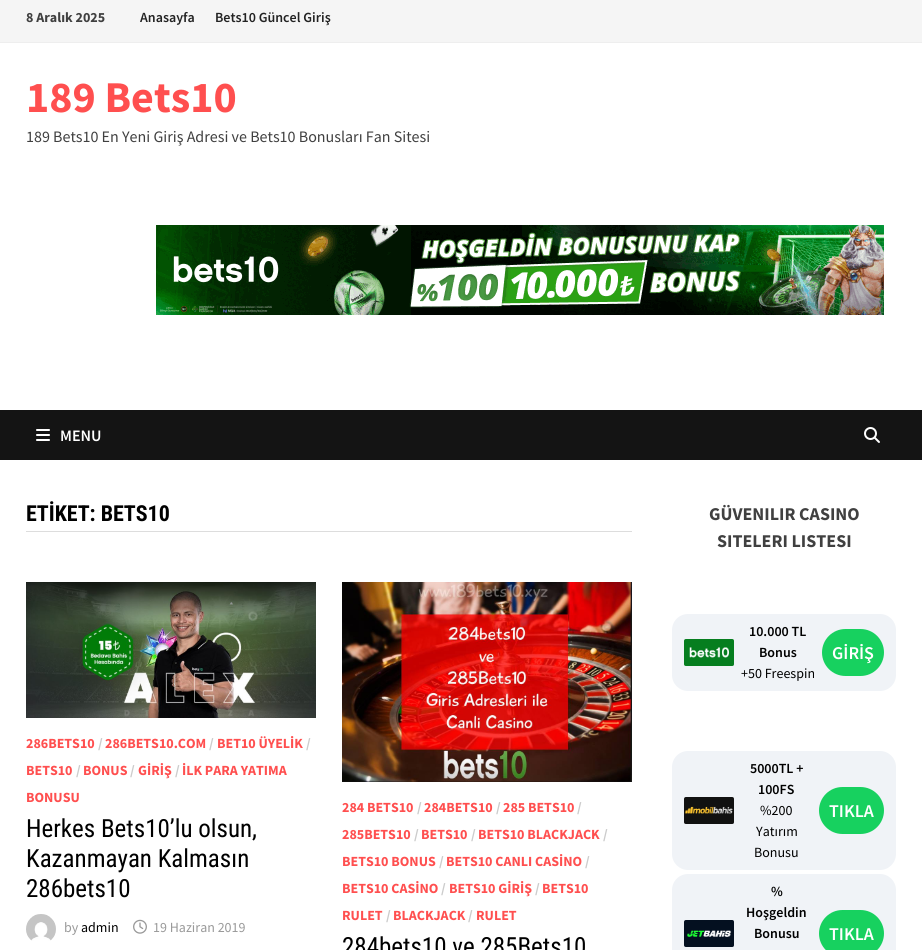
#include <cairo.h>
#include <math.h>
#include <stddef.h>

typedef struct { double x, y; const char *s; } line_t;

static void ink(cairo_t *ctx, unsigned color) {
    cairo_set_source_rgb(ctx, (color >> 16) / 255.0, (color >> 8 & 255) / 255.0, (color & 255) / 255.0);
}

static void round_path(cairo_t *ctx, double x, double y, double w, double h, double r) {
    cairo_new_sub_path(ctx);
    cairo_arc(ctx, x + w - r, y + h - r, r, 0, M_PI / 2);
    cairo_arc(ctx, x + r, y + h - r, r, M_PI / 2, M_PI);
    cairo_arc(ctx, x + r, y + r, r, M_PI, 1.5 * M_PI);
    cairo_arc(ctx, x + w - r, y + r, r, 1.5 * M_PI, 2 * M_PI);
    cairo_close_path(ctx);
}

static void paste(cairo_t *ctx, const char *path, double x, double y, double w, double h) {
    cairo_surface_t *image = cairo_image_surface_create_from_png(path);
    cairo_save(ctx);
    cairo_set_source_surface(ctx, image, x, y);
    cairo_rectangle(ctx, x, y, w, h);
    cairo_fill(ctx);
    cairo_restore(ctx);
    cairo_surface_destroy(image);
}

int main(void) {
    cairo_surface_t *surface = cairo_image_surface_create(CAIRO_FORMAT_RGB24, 922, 950);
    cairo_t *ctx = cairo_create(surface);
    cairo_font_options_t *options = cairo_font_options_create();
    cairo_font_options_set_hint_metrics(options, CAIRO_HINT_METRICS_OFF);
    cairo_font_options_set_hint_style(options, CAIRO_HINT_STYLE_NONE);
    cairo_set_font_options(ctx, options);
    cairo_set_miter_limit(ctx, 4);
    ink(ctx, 0xFFFFFF);
    cairo_paint(ctx);
    ink(ctx, 0xF5F5F5);
    cairo_rectangle(ctx, 0, 0, 922, 42);
    cairo_fill(ctx);
    ink(ctx, 0xEEEEEE);
    cairo_rectangle(ctx, 0, 42, 922, 1);
    cairo_fill(ctx);
    cairo_select_font_face(ctx, "Source Sans Pro", CAIRO_FONT_SLANT_NORMAL, CAIRO_FONT_WEIGHT_BOLD);
    cairo_set_font_size(ctx, 14);
    ink(ctx, 0x404040);
    cairo_move_to(ctx, 26, 22);
    cairo_show_text(ctx, "8 Aralık 2025");
    cairo_select_font_face(ctx, "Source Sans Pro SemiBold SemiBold", CAIRO_FONT_SLANT_NORMAL, CAIRO_FONT_WEIGHT_NORMAL);
    ink(ctx, 0x222222);
    cairo_move_to(ctx, 140, 22);
    cairo_show_text(ctx, "Anasayfa");
    cairo_move_to(ctx, 215, 22);
    cairo_show_text(ctx, "Bets10 Güncel Giriş");
    cairo_select_font_face(ctx, "Source Sans Pro", CAIRO_FONT_SLANT_NORMAL, CAIRO_FONT_WEIGHT_BOLD);
    cairo_set_font_size(ctx, 44);
    ink(ctx, 0xFF4F4F);
    cairo_move_to(ctx, 26, 112);
    cairo_show_text(ctx, "189 Bets10");
    cairo_select_font_face(ctx, "Source Sans Pro", CAIRO_FONT_SLANT_NORMAL, CAIRO_FONT_WEIGHT_NORMAL);
    cairo_set_font_size(ctx, 16);
    ink(ctx, 0x404040);
    cairo_move_to(ctx, 26, 142);
    cairo_show_text(ctx, "189 Bets10 En Yeni Giriş Adresi ve Bets10 Bonusları Fan Sitesi");
    paste(ctx, "media/1.png", 156, 225, 728, 90);
    ink(ctx, 0x141414);
    cairo_rectangle(ctx, 0, 410, 922, 50);
    cairo_fill(ctx);
    paste(ctx, "media/2.png", 36, 429, 14, 12);
    cairo_select_font_face(ctx, "Source Sans Pro SemiBold SemiBold", CAIRO_FONT_SLANT_NORMAL, CAIRO_FONT_WEIGHT_NORMAL);
    ink(ctx, 0xFFFFFF);
    cairo_move_to(ctx, 60, 441);
    cairo_show_text(ctx, "MENU");
    paste(ctx, "media/3.png", 864, 427, 16, 16);
    ink(ctx, 0xDDDDDD);
    cairo_rectangle(ctx, 26, 531, 606, 1);
    cairo_fill(ctx);
    cairo_select_font_face(ctx, "Roboto Condensed", CAIRO_FONT_SLANT_NORMAL, CAIRO_FONT_WEIGHT_BOLD);
    cairo_set_font_size(ctx, 22);
    ink(ctx, 0x000000);
    cairo_move_to(ctx, 26, 521);
    cairo_show_text(ctx, "ETİKET: BETS10");
    paste(ctx, "media/4.png", 26, 582, 290, 136);
    cairo_select_font_face(ctx, "Source Sans Pro", CAIRO_FONT_SLANT_NORMAL, CAIRO_FONT_WEIGHT_BOLD);
    cairo_set_font_size(ctx, 14);
    ink(ctx, 0xFF4F4F);
    cairo_move_to(ctx, 26, 748);
    cairo_show_text(ctx, "286BETS10");
    ink(ctx, 0xCCCCCC);
    cairo_move_to(ctx, 98, 748);
    cairo_show_text(ctx, "/");
    ink(ctx, 0xFF4F4F);
    cairo_move_to(ctx, 105, 748);
    cairo_show_text(ctx, "286BETS10.COM");
    ink(ctx, 0xCCCCCC);
    cairo_move_to(ctx, 209, 748);
    cairo_show_text(ctx, "/");
    ink(ctx, 0xFF4F4F);
    cairo_move_to(ctx, 217, 748);
    cairo_show_text(ctx, "BET10 ÜYELİK");
    ink(ctx, 0xCCCCCC);
    cairo_move_to(ctx, 306, 748);
    cairo_show_text(ctx, "/");
    ink(ctx, 0xFF4F4F);
    cairo_move_to(ctx, 26, 775);
    cairo_show_text(ctx, "BETS10");
    ink(ctx, 0xCCCCCC);
    cairo_move_to(ctx, 76, 775);
    cairo_show_text(ctx, "/");
    ink(ctx, 0xFF4F4F);
    cairo_move_to(ctx, 83, 775);
    cairo_show_text(ctx, "BONUS");
    ink(ctx, 0xCCCCCC);
    cairo_move_to(ctx, 130, 775);
    cairo_show_text(ctx, "/");
    ink(ctx, 0xFF4F4F);
    cairo_move_to(ctx, 138, 775);
    cairo_show_text(ctx, "GİRİŞ");
    ink(ctx, 0xCCCCCC);
    cairo_move_to(ctx, 175, 775);
    cairo_show_text(ctx, "/");
    ink(ctx, 0xFF4F4F);
    cairo_move_to(ctx, 182, 775);
    cairo_show_text(ctx, "İLK PARA YATIMA");
    cairo_move_to(ctx, 26, 802);
    cairo_show_text(ctx, "BONUSU");
    cairo_select_font_face(ctx, "Roboto Condensed", CAIRO_FONT_SLANT_NORMAL, CAIRO_FONT_WEIGHT_NORMAL);
    cairo_set_font_size(ctx, 25);
    ink(ctx, 0x000000);
    {
        static const line_t items[] = {
            {26, 837, "Herkes Bets10’lu olsun,"},
            {26, 867, "Kazanmayan Kalmasın"},
            {26, 897, "286bets10"},
        };
        for (size_t i = 0; i < sizeof items / sizeof *items; i++) {
            cairo_move_to(ctx, items[i].x, items[i].y);
            cairo_show_text(ctx, items[i].s);
        }
    }
    paste(ctx, "media/5.png", 26, 914, 30, 27);
    cairo_select_font_face(ctx, "Source Sans Pro", CAIRO_FONT_SLANT_NORMAL, CAIRO_FONT_WEIGHT_NORMAL);
    cairo_set_font_size(ctx, 14);
    ink(ctx, 0x999999);
    cairo_move_to(ctx, 64, 932);
    cairo_show_text(ctx, "by");
    ink(ctx, 0x000000);
    cairo_move_to(ctx, 81, 932);
    cairo_show_text(ctx, "admin");
    paste(ctx, "media/6.png", 133, 919, 14, 15);
    ink(ctx, 0x999999);
    cairo_move_to(ctx, 153, 932);
    cairo_show_text(ctx, "19 Haziran 2019");
    paste(ctx, "media/7.png", 342, 582, 290, 200);
    cairo_select_font_face(ctx, "Source Sans Pro", CAIRO_FONT_SLANT_NORMAL, CAIRO_FONT_WEIGHT_BOLD);
    ink(ctx, 0xFF4F4F);
    cairo_move_to(ctx, 342, 812);
    cairo_show_text(ctx, "284 BETS10");
    ink(ctx, 0xCCCCCC);
    cairo_move_to(ctx, 417, 812);
    cairo_show_text(ctx, "/");
    ink(ctx, 0xFF4F4F);
    cairo_move_to(ctx, 424, 812);
    cairo_show_text(ctx, "284BETS10");
    ink(ctx, 0xCCCCCC);
    cairo_move_to(ctx, 496, 812);
    cairo_show_text(ctx, "/");
    ink(ctx, 0xFF4F4F);
    cairo_move_to(ctx, 503, 812);
    cairo_show_text(ctx, "285 BETS10");
    ink(ctx, 0xCCCCCC);
    cairo_move_to(ctx, 577, 812);
    cairo_show_text(ctx, "/");
    ink(ctx, 0xFF4F4F);
    cairo_move_to(ctx, 342, 839);
    cairo_show_text(ctx, "285BETS10");
    ink(ctx, 0xCCCCCC);
    cairo_move_to(ctx, 414, 839);
    cairo_show_text(ctx, "/");
    ink(ctx, 0xFF4F4F);
    cairo_move_to(ctx, 421, 839);
    cairo_show_text(ctx, "BETS10");
    ink(ctx, 0xCCCCCC);
    cairo_move_to(ctx, 471, 839);
    cairo_show_text(ctx, "/");
    ink(ctx, 0xFF4F4F);
    cairo_move_to(ctx, 478, 839);
    cairo_show_text(ctx, "BETS10 BLACKJACK");
    ink(ctx, 0xCCCCCC);
    cairo_move_to(ctx, 603, 839);
    cairo_show_text(ctx, "/");
    ink(ctx, 0xFF4F4F);
    cairo_move_to(ctx, 342, 866);
    cairo_show_text(ctx, "BETS10 BONUS");
    ink(ctx, 0xCCCCCC);
    cairo_move_to(ctx, 439, 866);
    cairo_show_text(ctx, "/");
    ink(ctx, 0xFF4F4F);
    cairo_move_to(ctx, 446, 866);
    cairo_show_text(ctx, "BETS10 CANLI CASİNO");
    ink(ctx, 0xCCCCCC);
    cairo_move_to(ctx, 585, 866);
    cairo_show_text(ctx, "/");
    ink(ctx, 0xFF4F4F);
    cairo_move_to(ctx, 342, 893);
    cairo_show_text(ctx, "BETS10 CASİNO");
    ink(ctx, 0xCCCCCC);
    cairo_move_to(ctx, 441, 893);
    cairo_show_text(ctx, "/");
    ink(ctx, 0xFF4F4F);
    cairo_move_to(ctx, 449, 893);
    cairo_show_text(ctx, "BETS10 GİRİŞ");
    ink(ctx, 0xCCCCCC);
    cairo_move_to(ctx, 535, 893);
    cairo_show_text(ctx, "/");
    ink(ctx, 0xFF4F4F);
    cairo_move_to(ctx, 542, 893);
    cairo_show_text(ctx, "BETS10");
    cairo_move_to(ctx, 342, 920);
    cairo_show_text(ctx, "RULET");
    ink(ctx, 0xCCCCCC);
    cairo_move_to(ctx, 386, 920);
    cairo_show_text(ctx, "/");
    ink(ctx, 0xFF4F4F);
    cairo_move_to(ctx, 393, 920);
    cairo_show_text(ctx, "BLACKJACK");
    ink(ctx, 0xCCCCCC);
    cairo_move_to(ctx, 468, 920);
    cairo_show_text(ctx, "/");
    ink(ctx, 0xFF4F4F);
    cairo_move_to(ctx, 476, 920);
    cairo_show_text(ctx, "RULET");
    cairo_select_font_face(ctx, "Roboto Condensed", CAIRO_FONT_SLANT_NORMAL, CAIRO_FONT_WEIGHT_NORMAL);
    cairo_set_font_size(ctx, 25);
    ink(ctx, 0x000000);
    cairo_move_to(ctx, 342, 955);
    cairo_show_text(ctx, "284bets10 ve 285Bets10");
    cairo_select_font_face(ctx, "Source Sans Pro", CAIRO_FONT_SLANT_NORMAL, CAIRO_FONT_WEIGHT_BOLD);
    cairo_set_font_size(ctx, 18);
    ink(ctx, 0x404040);
    cairo_move_to(ctx, 709, 520);
    cairo_show_text(ctx, "GÜVENILIR CASINO");
    cairo_move_to(ctx, 717, 547);
    cairo_show_text(ctx, "SITELERI LISTESI");
    ink(ctx, 0xF0F3F7);
    round_path(ctx, 672, 614, 224, 77, 16);
    cairo_fill(ctx);
    paste(ctx, "media/8.png", 684, 639, 50, 27);
    cairo_select_font_face(ctx, "Source Sans Pro SemiBold SemiBold", CAIRO_FONT_SLANT_NORMAL, CAIRO_FONT_WEIGHT_NORMAL);
    cairo_set_font_size(ctx, 14);
    ink(ctx, 0x000000);
    cairo_move_to(ctx, 749, 636);
    cairo_show_text(ctx, "10.000 TL");
    cairo_move_to(ctx, 759, 657);
    cairo_show_text(ctx, "Bonus");
    cairo_select_font_face(ctx, "Source Sans Pro", CAIRO_FONT_SLANT_NORMAL, CAIRO_FONT_WEIGHT_NORMAL);
    cairo_move_to(ctx, 741, 678);
    cairo_show_text(ctx, "+50 Freespin");
    ink(ctx, 0x17D15F);
    round_path(ctx, 822, 629, 62, 47, 23.5);
    cairo_fill(ctx);
    cairo_select_font_face(ctx, "Source Sans Pro SemiBold SemiBold", CAIRO_FONT_SLANT_NORMAL, CAIRO_FONT_WEIGHT_NORMAL);
    cairo_set_font_size(ctx, 18);
    ink(ctx, 0xFFFFFF);
    cairo_move_to(ctx, 832, 659);
    cairo_show_text(ctx, "GİRİŞ");
    ink(ctx, 0xF0F3F7);
    round_path(ctx, 672, 751, 224, 119, 16);
    cairo_fill(ctx);
    paste(ctx, "media/9.png", 684, 797, 50, 27);
    cairo_set_font_size(ctx, 14);
    ink(ctx, 0x000000);
    cairo_move_to(ctx, 750, 773);
    cairo_show_text(ctx, "5000TL +");
    cairo_move_to(ctx, 758, 794);
    cairo_show_text(ctx, "100FS");
    cairo_select_font_face(ctx, "Source Sans Pro", CAIRO_FONT_SLANT_NORMAL, CAIRO_FONT_WEIGHT_NORMAL);
    {
        static const line_t items[] = {
            {760, 815, "%200"},
            {756, 836, "Yatırım"},
            {754, 857, "Bonusu"},
        };
        for (size_t i = 0; i < sizeof items / sizeof *items; i++) {
            cairo_move_to(ctx, items[i].x, items[i].y);
            cairo_show_text(ctx, items[i].s);
        }
    }
    ink(ctx, 0x17D15F);
    round_path(ctx, 819, 787, 65, 47, 23.5);
    cairo_fill(ctx);
    cairo_select_font_face(ctx, "Source Sans Pro SemiBold SemiBold", CAIRO_FONT_SLANT_NORMAL, CAIRO_FONT_WEIGHT_NORMAL);
    cairo_set_font_size(ctx, 18);
    ink(ctx, 0xFFFFFF);
    cairo_move_to(ctx, 829, 817);
    cairo_show_text(ctx, "TIKLA");
    ink(ctx, 0xF0F3F7);
    round_path(ctx, 672, 874, 224, 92, 16);
    cairo_fill(ctx);
    paste(ctx, "media/10.png", 684, 920, 50, 27);
    cairo_set_font_size(ctx, 14);
    ink(ctx, 0x000000);
    {
        static const line_t items[] = {
            {771, 896, "%"},
            {746, 917, "Hoşgeldin"},
            {754, 938, "Bonusu"},
        };
        for (size_t i = 0; i < sizeof items / sizeof *items; i++) {
            cairo_move_to(ctx, items[i].x, items[i].y);
            cairo_show_text(ctx, items[i].s);
        }
    }
    ink(ctx, 0x17D15F);
    round_path(ctx, 819, 910, 65, 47, 23.5);
    cairo_fill(ctx);
    cairo_set_font_size(ctx, 18);
    ink(ctx, 0xFFFFFF);
    cairo_move_to(ctx, 829, 940);
    cairo_show_text(ctx, "TIKLA");
    cairo_surface_write_to_png(surface, "image.png");
    cairo_font_options_destroy(options);
    cairo_destroy(ctx);
    cairo_surface_destroy(surface);
    return 0;
}
